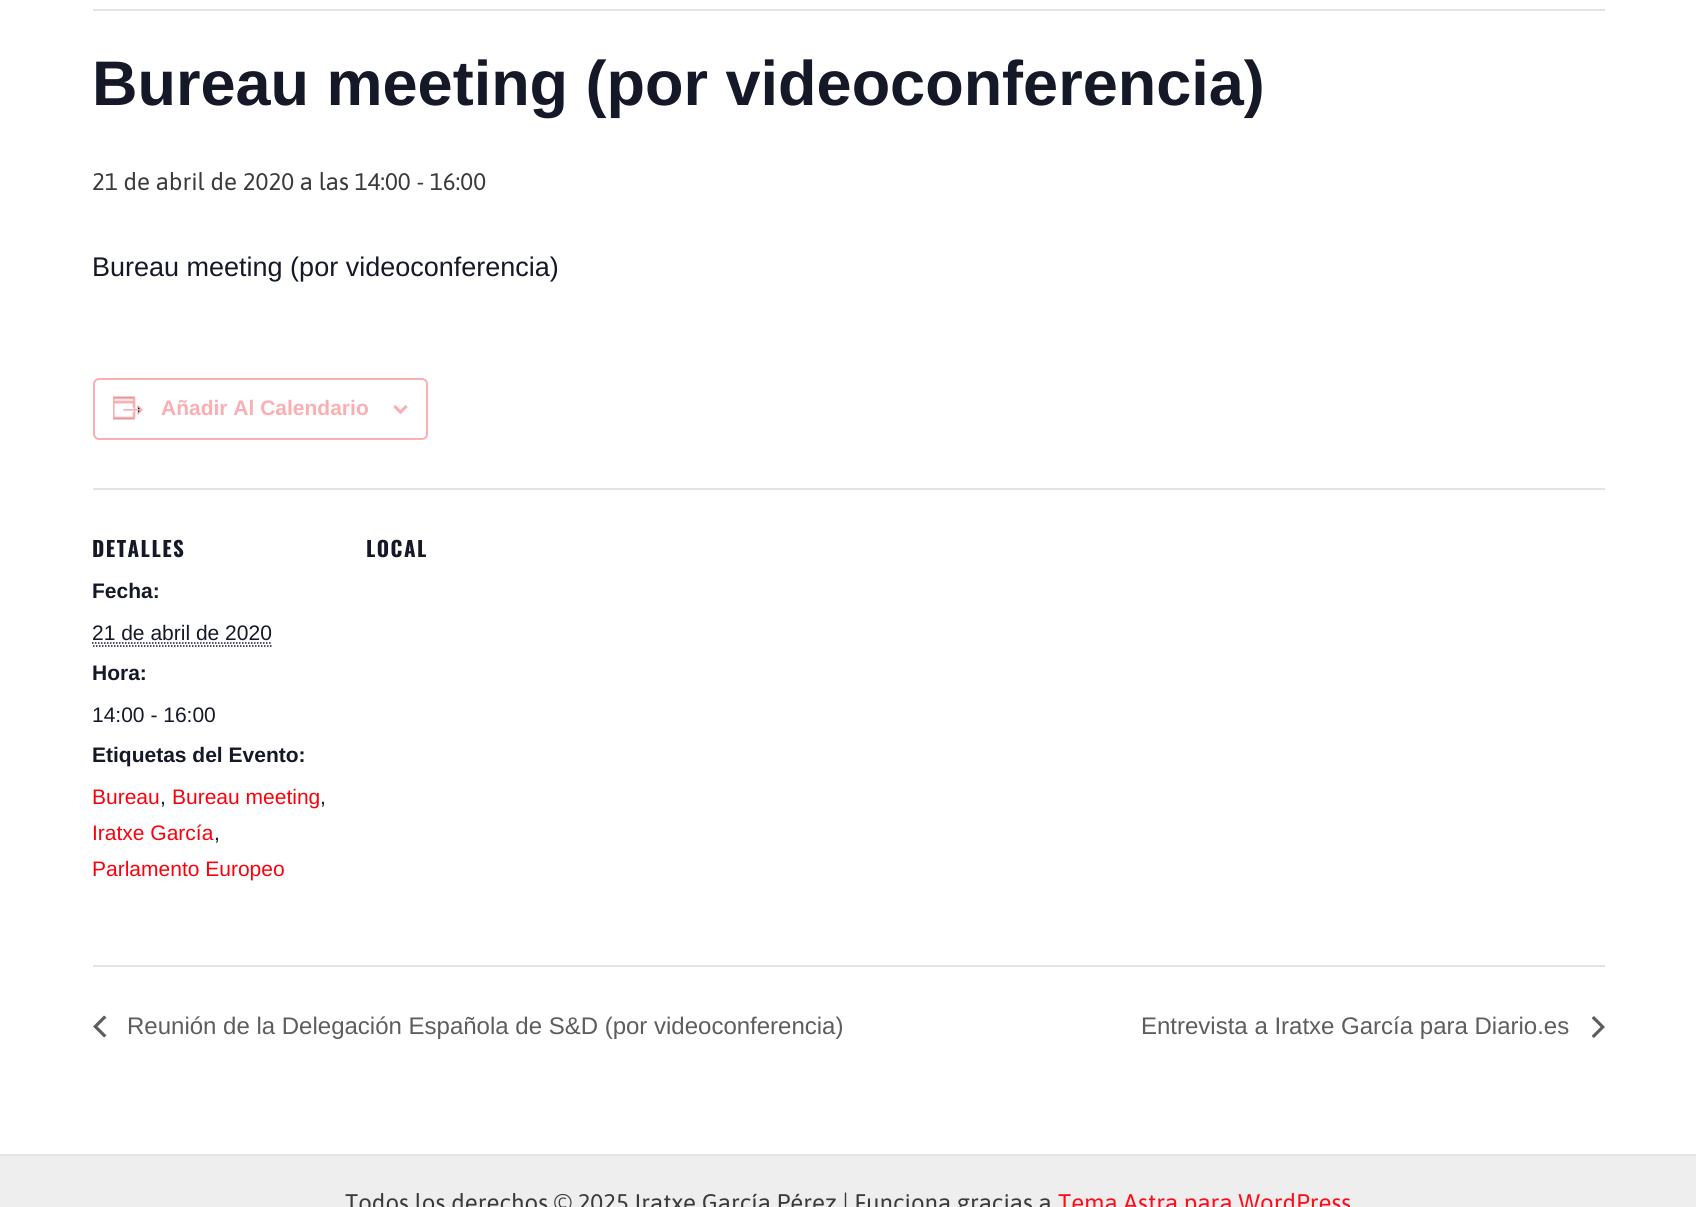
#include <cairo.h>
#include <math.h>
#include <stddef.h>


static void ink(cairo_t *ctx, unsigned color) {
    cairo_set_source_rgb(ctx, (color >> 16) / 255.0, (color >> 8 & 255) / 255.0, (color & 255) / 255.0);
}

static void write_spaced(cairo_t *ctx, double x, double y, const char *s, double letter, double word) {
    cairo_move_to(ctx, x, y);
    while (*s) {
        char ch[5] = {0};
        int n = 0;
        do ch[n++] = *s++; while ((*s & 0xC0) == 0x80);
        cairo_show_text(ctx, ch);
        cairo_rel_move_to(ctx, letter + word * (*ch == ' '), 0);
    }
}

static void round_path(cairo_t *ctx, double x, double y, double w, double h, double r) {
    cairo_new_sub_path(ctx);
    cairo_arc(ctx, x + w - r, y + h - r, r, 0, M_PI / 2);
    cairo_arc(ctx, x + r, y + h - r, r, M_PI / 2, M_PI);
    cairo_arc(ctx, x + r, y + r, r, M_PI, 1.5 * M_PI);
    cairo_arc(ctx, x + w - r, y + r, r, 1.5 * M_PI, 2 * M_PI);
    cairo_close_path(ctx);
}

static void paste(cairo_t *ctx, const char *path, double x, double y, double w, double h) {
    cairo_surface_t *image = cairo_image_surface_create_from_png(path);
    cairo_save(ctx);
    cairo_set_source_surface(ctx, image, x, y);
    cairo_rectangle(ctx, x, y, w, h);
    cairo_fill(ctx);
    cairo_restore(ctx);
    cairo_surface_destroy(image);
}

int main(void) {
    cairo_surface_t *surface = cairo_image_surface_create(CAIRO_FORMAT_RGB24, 1696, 1207);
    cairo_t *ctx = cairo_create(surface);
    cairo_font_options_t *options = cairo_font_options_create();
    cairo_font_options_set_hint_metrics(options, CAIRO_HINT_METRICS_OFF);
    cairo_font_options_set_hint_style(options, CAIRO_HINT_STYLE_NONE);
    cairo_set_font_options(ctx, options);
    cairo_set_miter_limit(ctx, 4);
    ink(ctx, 0xFFFFFF);
    cairo_paint(ctx);
    ink(ctx, 0xE4E4E4);
    cairo_rectangle(ctx, 93, 9, 1512, 2);
    cairo_fill(ctx);
    cairo_select_font_face(ctx, "Liberation Sans", CAIRO_FONT_SLANT_NORMAL, CAIRO_FONT_WEIGHT_BOLD);
    cairo_set_font_size(ctx, 63);
    ink(ctx, 0x141827);
    cairo_move_to(ctx, 92, 105);
    cairo_show_text(ctx, "Bureau meeting (por videoconferencia)");
    cairo_select_font_face(ctx, "Asap", CAIRO_FONT_SLANT_NORMAL, CAIRO_FONT_WEIGHT_NORMAL);
    cairo_set_font_size(ctx, 24);
    ink(ctx, 0x3A3A3A);
    cairo_move_to(ctx, 92, 190);
    cairo_show_text(ctx, "21 de abril de 2020 a las 14:00 - 16:00");
    cairo_select_font_face(ctx, "Liberation Sans", CAIRO_FONT_SLANT_NORMAL, CAIRO_FONT_WEIGHT_NORMAL);
    cairo_set_font_size(ctx, 27);
    ink(ctx, 0x141827);
    cairo_move_to(ctx, 92, 276);
    cairo_show_text(ctx, "Bureau meeting (por videoconferencia)");
    round_path(ctx, 94, 379, 333, 60, 5);
    ink(ctx, 0xFCAEB3);
    cairo_stroke(ctx);
    paste(ctx, "media/1.png", 113, 396, 30, 24);
    cairo_select_font_face(ctx, "Liberation Sans", CAIRO_FONT_SLANT_NORMAL, CAIRO_FONT_WEIGHT_BOLD);
    cairo_set_font_size(ctx, 21);
    cairo_move_to(ctx, 161, 415);
    cairo_show_text(ctx, "Añadir Al Calendario");
    paste(ctx, "media/2.png", 393, 405, 15, 9);
    ink(ctx, 0xE4E4E4);
    cairo_rectangle(ctx, 93, 488, 1512, 2);
    cairo_fill(ctx);
    cairo_select_font_face(ctx, "Oswald", CAIRO_FONT_SLANT_NORMAL, CAIRO_FONT_WEIGHT_BOLD);
    ink(ctx, 0x141827);
    write_spaced(ctx, 92, 557, "DETALLES", 1.5, 0);
    cairo_select_font_face(ctx, "Liberation Sans", CAIRO_FONT_SLANT_NORMAL, CAIRO_FONT_WEIGHT_BOLD);
    cairo_move_to(ctx, 92, 598);
    cairo_show_text(ctx, "Fecha:");
    cairo_select_font_face(ctx, "Liberation Sans", CAIRO_FONT_SLANT_NORMAL, CAIRO_FONT_WEIGHT_NORMAL);
    cairo_move_to(ctx, 92, 640);
    cairo_show_text(ctx, "21 de abril de 2020");
    cairo_new_path(ctx);
    cairo_move_to(ctx, 93, 646);
    cairo_line_to(ctx, 271.5, 646);
    cairo_set_line_width(ctx, 1.5);
    cairo_set_dash(ctx, (double[]){1.5, 1.5}, 2, 0);
    cairo_stroke(ctx);
    cairo_new_path(ctx);
    cairo_move_to(ctx, 92, 643);
    cairo_line_to(ctx, 272, 643);
    cairo_stroke(ctx);
    cairo_select_font_face(ctx, "Liberation Sans", CAIRO_FONT_SLANT_NORMAL, CAIRO_FONT_WEIGHT_BOLD);
    cairo_move_to(ctx, 92, 680);
    cairo_show_text(ctx, "Hora:");
    cairo_select_font_face(ctx, "Liberation Sans", CAIRO_FONT_SLANT_NORMAL, CAIRO_FONT_WEIGHT_NORMAL);
    cairo_move_to(ctx, 92, 722);
    cairo_show_text(ctx, "14:00 - 16:00");
    cairo_select_font_face(ctx, "Liberation Sans", CAIRO_FONT_SLANT_NORMAL, CAIRO_FONT_WEIGHT_BOLD);
    cairo_move_to(ctx, 92, 762);
    cairo_show_text(ctx, "Etiquetas del Evento:");
    cairo_select_font_face(ctx, "Liberation Sans", CAIRO_FONT_SLANT_NORMAL, CAIRO_FONT_WEIGHT_NORMAL);
    ink(ctx, 0xFC000C);
    cairo_move_to(ctx, 92, 804);
    cairo_show_text(ctx, "Bureau");
    ink(ctx, 0x141827);
    cairo_move_to(ctx, 160, 804);
    cairo_show_text(ctx, ",");
    ink(ctx, 0xFC000C);
    cairo_move_to(ctx, 172, 804);
    cairo_show_text(ctx, "Bureau meeting");
    ink(ctx, 0x141827);
    cairo_move_to(ctx, 320, 804);
    cairo_show_text(ctx, ",");
    ink(ctx, 0xFC000C);
    cairo_move_to(ctx, 92, 840);
    cairo_show_text(ctx, "Iratxe García");
    ink(ctx, 0x141827);
    cairo_move_to(ctx, 214, 840);
    cairo_show_text(ctx, ",");
    ink(ctx, 0xFC000C);
    cairo_move_to(ctx, 92, 876);
    cairo_show_text(ctx, "Parlamento Europeo");
    cairo_select_font_face(ctx, "Oswald", CAIRO_FONT_SLANT_NORMAL, CAIRO_FONT_WEIGHT_BOLD);
    ink(ctx, 0x141827);
    write_spaced(ctx, 366, 557, "LOCAL", 1.5, 0);
    ink(ctx, 0xE4E4E4);
    cairo_rectangle(ctx, 93, 965, 1512, 2);
    cairo_fill(ctx);
    ink(ctx, 0x5D5D5D);
    cairo_new_path(ctx);
    cairo_move_to(ctx, 106.5, 1035.5);
    cairo_line_to(ctx, 104, 1037.5);
    cairo_line_to(ctx, 93, 1026.5);
    cairo_line_to(ctx, 104, 1015.5);
    cairo_line_to(ctx, 106.5, 1017.5);
    cairo_line_to(ctx, 97.5, 1026.5);
    cairo_close_path(ctx);
    cairo_fill(ctx);
    cairo_select_font_face(ctx, "Liberation Sans", CAIRO_FONT_SLANT_NORMAL, CAIRO_FONT_WEIGHT_NORMAL);
    cairo_set_font_size(ctx, 24);
    cairo_move_to(ctx, 127, 1034);
    cairo_show_text(ctx, "Reunión de la Delegación Española de S&D (por videoconferencia)");
    cairo_move_to(ctx, 1141, 1034);
    cairo_show_text(ctx, "Entrevista a Iratxe García para Diario.es");
    cairo_save(ctx);
    cairo_rectangle(ctx, 1592, 1016, 13, 22);
    cairo_clip(ctx);
    cairo_new_path(ctx);
    cairo_move_to(ctx, 1591.5, 1018);
    cairo_line_to(ctx, 1594, 1016);
    cairo_line_to(ctx, 1605, 1027);
    cairo_line_to(ctx, 1594, 1038);
    cairo_line_to(ctx, 1591.5, 1036);
    cairo_line_to(ctx, 1600.5, 1027);
    cairo_close_path(ctx);
    cairo_fill(ctx);
    cairo_restore(ctx);
    ink(ctx, 0xEEEEEE);
    cairo_rectangle(ctx, 0, 1156, 1696, 51);
    cairo_fill(ctx);
    ink(ctx, 0xE5E5E5);
    cairo_rectangle(ctx, 0, 1154, 1696, 2);
    cairo_fill(ctx);
    cairo_select_font_face(ctx, "Asap", CAIRO_FONT_SLANT_NORMAL, CAIRO_FONT_WEIGHT_NORMAL);
    ink(ctx, 0x3A3A3A);
    cairo_move_to(ctx, 345, 1211);
    cairo_show_text(ctx, "Todos los derechos © 2025 Iratxe García Pérez | Funciona gracias a");
    ink(ctx, 0xFD0D1B);
    cairo_move_to(ctx, 1058, 1211);
    cairo_show_text(ctx, "Tema Astra para WordPress");
    cairo_surface_write_to_png(surface, "image.png");
    cairo_font_options_destroy(options);
    cairo_destroy(ctx);
    cairo_surface_destroy(surface);
    return 0;
}
